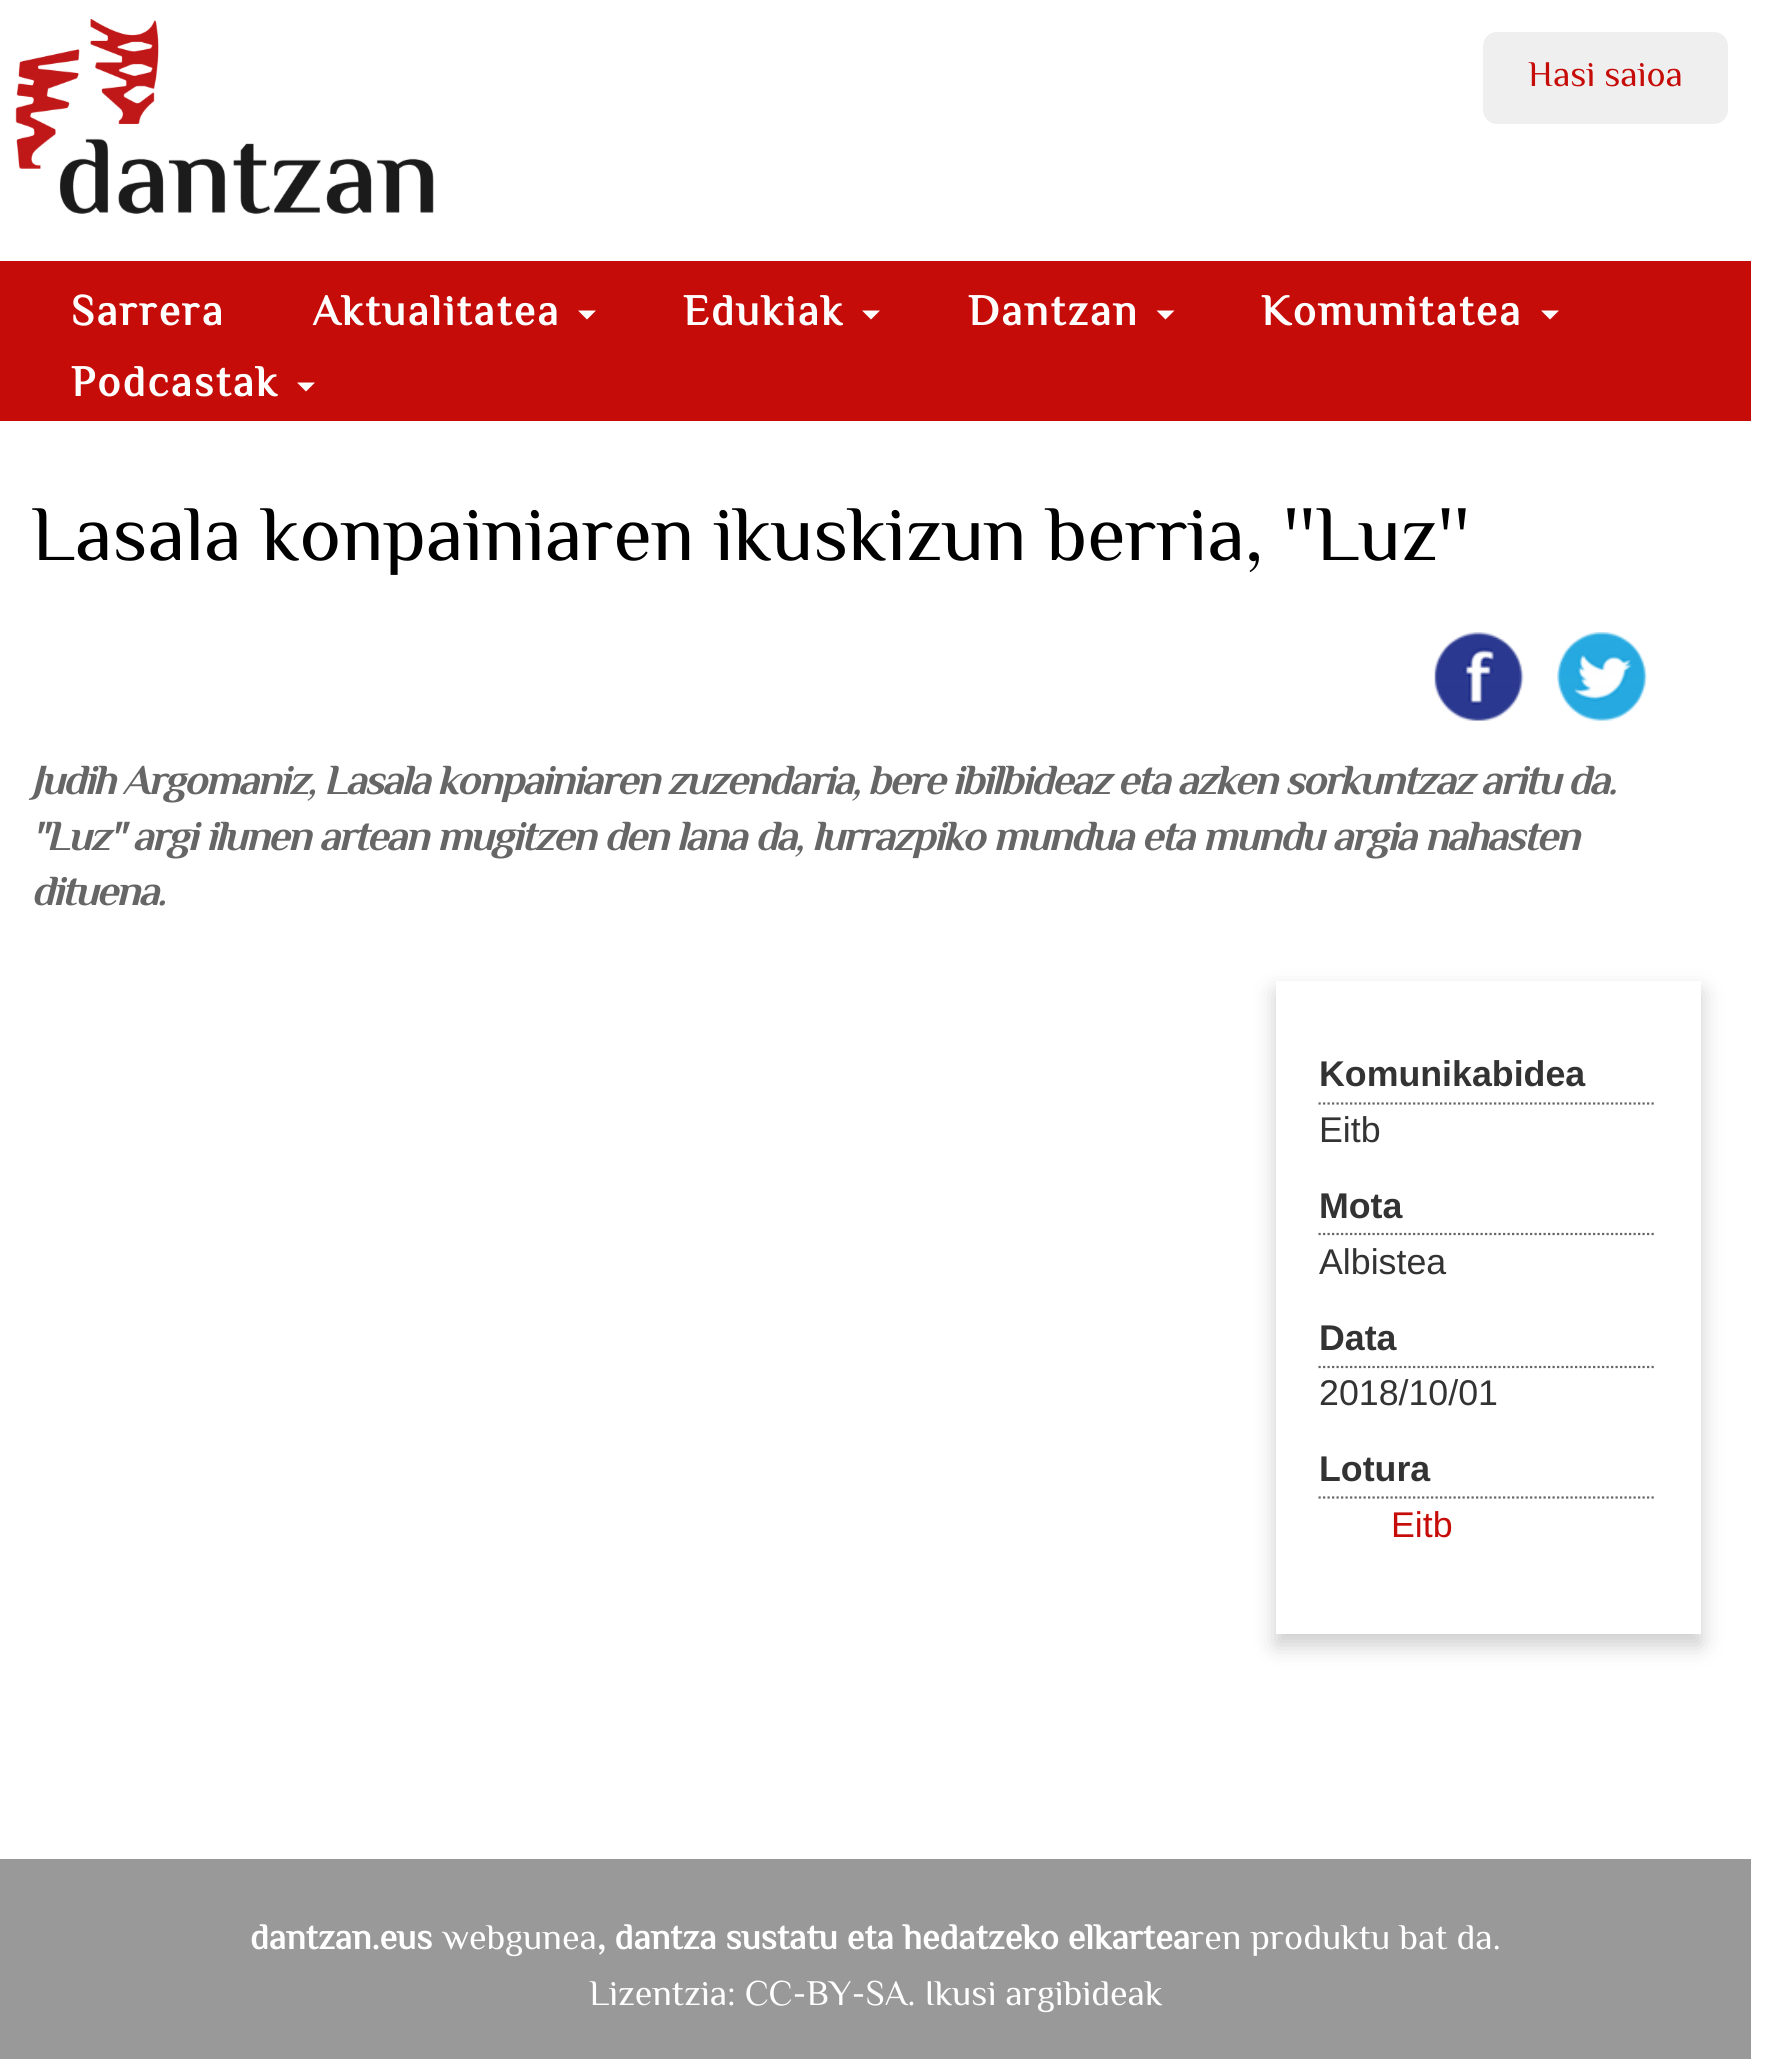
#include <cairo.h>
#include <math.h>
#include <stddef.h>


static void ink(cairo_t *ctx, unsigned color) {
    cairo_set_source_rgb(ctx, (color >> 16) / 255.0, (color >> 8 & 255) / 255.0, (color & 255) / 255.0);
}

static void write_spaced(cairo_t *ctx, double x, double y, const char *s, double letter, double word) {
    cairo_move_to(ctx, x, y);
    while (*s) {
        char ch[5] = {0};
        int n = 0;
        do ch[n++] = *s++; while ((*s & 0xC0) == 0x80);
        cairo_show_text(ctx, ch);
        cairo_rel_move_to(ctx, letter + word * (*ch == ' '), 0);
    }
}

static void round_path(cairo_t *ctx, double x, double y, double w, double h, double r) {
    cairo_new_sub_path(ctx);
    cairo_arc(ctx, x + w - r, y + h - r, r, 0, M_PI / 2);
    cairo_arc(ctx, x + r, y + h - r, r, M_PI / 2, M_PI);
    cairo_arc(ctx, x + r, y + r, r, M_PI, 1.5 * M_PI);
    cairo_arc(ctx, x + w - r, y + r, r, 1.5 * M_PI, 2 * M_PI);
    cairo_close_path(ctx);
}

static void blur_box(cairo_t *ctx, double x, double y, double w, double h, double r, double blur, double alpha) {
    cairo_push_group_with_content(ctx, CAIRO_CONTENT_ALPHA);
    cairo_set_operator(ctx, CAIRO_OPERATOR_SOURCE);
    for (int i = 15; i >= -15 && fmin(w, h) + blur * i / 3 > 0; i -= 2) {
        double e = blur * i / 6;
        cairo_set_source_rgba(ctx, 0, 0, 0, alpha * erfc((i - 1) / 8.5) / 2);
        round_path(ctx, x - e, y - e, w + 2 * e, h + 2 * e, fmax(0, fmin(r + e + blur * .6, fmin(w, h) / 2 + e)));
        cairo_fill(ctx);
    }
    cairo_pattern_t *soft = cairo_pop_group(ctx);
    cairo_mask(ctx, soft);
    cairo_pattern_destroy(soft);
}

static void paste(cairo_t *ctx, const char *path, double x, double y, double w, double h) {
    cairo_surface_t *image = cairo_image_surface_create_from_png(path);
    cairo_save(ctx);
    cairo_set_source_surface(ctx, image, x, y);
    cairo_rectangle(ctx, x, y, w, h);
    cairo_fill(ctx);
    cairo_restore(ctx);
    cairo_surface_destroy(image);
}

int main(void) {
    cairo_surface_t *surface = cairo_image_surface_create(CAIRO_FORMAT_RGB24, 1791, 2059);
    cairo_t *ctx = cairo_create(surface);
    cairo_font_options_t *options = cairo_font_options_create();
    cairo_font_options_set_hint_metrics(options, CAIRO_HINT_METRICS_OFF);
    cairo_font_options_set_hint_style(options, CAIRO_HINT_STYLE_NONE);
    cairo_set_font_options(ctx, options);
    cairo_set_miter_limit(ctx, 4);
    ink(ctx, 0xFFFFFF);
    cairo_paint(ctx);
    paste(ctx, "media/1.png", 15, 19, 419, 195);
    ink(ctx, 0xEFEFEF);
    round_path(ctx, 1483, 32, 245, 92, 14);
    cairo_fill(ctx);
    cairo_select_font_face(ctx, "El Messiri", CAIRO_FONT_SLANT_NORMAL, CAIRO_FONT_WEIGHT_NORMAL);
    cairo_set_font_size(ctx, 36);
    ink(ctx, 0xC60C08);
    cairo_move_to(ctx, 1528, 86);
    cairo_show_text(ctx, "Hasi saioa");
    cairo_rectangle(ctx, 0, 261, 1751, 160);
    cairo_fill(ctx);
    cairo_select_font_face(ctx, "El Messiri", CAIRO_FONT_SLANT_NORMAL, CAIRO_FONT_WEIGHT_BOLD);
    cairo_set_font_size(ctx, 43.5);
    ink(ctx, 0xFFFFFF);
    write_spaced(ctx, 71, 325, "Sarrera", 2.25, 0);
    write_spaced(ctx, 312, 325, "Aktualitatea", 2.25, 0);
    cairo_new_path(ctx);
    cairo_move_to(ctx, 578, 310.5);
    cairo_line_to(ctx, 596, 310.5);
    cairo_line_to(ctx, 587, 319.5);
    cairo_close_path(ctx);
    cairo_fill(ctx);
    write_spaced(ctx, 683, 325, "Edukiak", 2.25, 0);
    cairo_new_path(ctx);
    cairo_move_to(ctx, 862, 310.5);
    cairo_line_to(ctx, 880, 310.5);
    cairo_line_to(ctx, 871, 319.5);
    cairo_close_path(ctx);
    cairo_fill(ctx);
    write_spaced(ctx, 968, 325, "Dantzan", 2.25, 0);
    cairo_new_path(ctx);
    cairo_move_to(ctx, 1156.5, 310.5);
    cairo_line_to(ctx, 1174.5, 310.5);
    cairo_line_to(ctx, 1165.5, 319.5);
    cairo_close_path(ctx);
    cairo_fill(ctx);
    write_spaced(ctx, 1261, 325, "Komunitatea", 2.25, 0);
    cairo_new_path(ctx);
    cairo_move_to(ctx, 1541, 310.5);
    cairo_line_to(ctx, 1559, 310.5);
    cairo_line_to(ctx, 1550, 319.5);
    cairo_close_path(ctx);
    cairo_fill(ctx);
    write_spaced(ctx, 71, 396, "Podcastak", 2.25, 0);
    cairo_new_path(ctx);
    cairo_move_to(ctx, 297, 382.5);
    cairo_line_to(ctx, 315, 382.5);
    cairo_line_to(ctx, 306, 391.5);
    cairo_close_path(ctx);
    cairo_fill(ctx);
    cairo_select_font_face(ctx, "El Messiri", CAIRO_FONT_SLANT_NORMAL, CAIRO_FONT_WEIGHT_NORMAL);
    cairo_set_font_size(ctx, 78.4);
    ink(ctx, 0x000000);
    cairo_move_to(ctx, 31, 560);
    cairo_show_text(ctx, "Lasala konpainiaren ikuskizun berria, ''Luz''");
    paste(ctx, "media/2.png", 1434, 632, 90, 89);
    paste(ctx, "media/3.png", 1557, 632, 90, 89);
    cairo_select_font_face(ctx, "El Messiri", CAIRO_FONT_SLANT_ITALIC, CAIRO_FONT_WEIGHT_BOLD);
    cairo_set_font_size(ctx, 42.75);
    ink(ctx, 0x666666);
    write_spaced(ctx, 31, 794, "Judih Argomaniz, Lasala konpainiaren zuzendaria, bere ibilbideaz eta azken sorkuntzaz aritu da.", -2.25, 0);
    write_spaced(ctx, 31, 850, "\"Luz\" argi ilunen artean mugitzen den lana da, lurrazpiko mundua eta mundu argia nahasten", -2.25, 1);
    write_spaced(ctx, 31, 905, "dituena.", -2.25, 0);
    ink(ctx, 0xCCCCCC);
    blur_box(ctx, 1276, 992, 425, 653, 0, 11, 1);
    ink(ctx, 0xFFFFFF);
    cairo_rectangle(ctx, 1276, 981, 425, 653);
    cairo_fill(ctx);
    cairo_new_path(ctx);
    cairo_move_to(ctx, 1318.5, 1103.5);
    cairo_line_to(ctx, 1656, 1103.5);
    ink(ctx, 0x666666);
    cairo_set_line_width(ctx, 2.2);
    cairo_set_dash(ctx, (double[]){2.25, 2.25}, 2, 0);
    cairo_stroke(ctx);
    cairo_select_font_face(ctx, "Liberation Sans", CAIRO_FONT_SLANT_NORMAL, CAIRO_FONT_WEIGHT_BOLD);
    cairo_set_font_size(ctx, 35.75);
    ink(ctx, 0x333333);
    cairo_move_to(ctx, 1319, 1086);
    cairo_show_text(ctx, "Komunikabidea");
    cairo_select_font_face(ctx, "Liberation Sans", CAIRO_FONT_SLANT_NORMAL, CAIRO_FONT_WEIGHT_NORMAL);
    cairo_move_to(ctx, 1319, 1142);
    cairo_show_text(ctx, "Eitb");
    cairo_new_path(ctx);
    cairo_move_to(ctx, 1318.5, 1234);
    cairo_line_to(ctx, 1656, 1234);
    ink(ctx, 0x666666);
    cairo_stroke(ctx);
    cairo_select_font_face(ctx, "Liberation Sans", CAIRO_FONT_SLANT_NORMAL, CAIRO_FONT_WEIGHT_BOLD);
    ink(ctx, 0x333333);
    cairo_move_to(ctx, 1319, 1218);
    cairo_show_text(ctx, "Mota");
    cairo_select_font_face(ctx, "Liberation Sans", CAIRO_FONT_SLANT_NORMAL, CAIRO_FONT_WEIGHT_NORMAL);
    cairo_move_to(ctx, 1319, 1274);
    cairo_show_text(ctx, "Albistea");
    cairo_new_path(ctx);
    cairo_move_to(ctx, 1318.5, 1367);
    cairo_line_to(ctx, 1656, 1367);
    ink(ctx, 0x666666);
    cairo_stroke(ctx);
    cairo_select_font_face(ctx, "Liberation Sans", CAIRO_FONT_SLANT_NORMAL, CAIRO_FONT_WEIGHT_BOLD);
    ink(ctx, 0x333333);
    cairo_move_to(ctx, 1319, 1350);
    cairo_show_text(ctx, "Data");
    cairo_select_font_face(ctx, "Liberation Sans", CAIRO_FONT_SLANT_NORMAL, CAIRO_FONT_WEIGHT_NORMAL);
    cairo_move_to(ctx, 1319, 1405);
    cairo_show_text(ctx, "2018/10/01");
    cairo_new_path(ctx);
    cairo_move_to(ctx, 1318.5, 1497.5);
    cairo_line_to(ctx, 1656, 1497.5);
    ink(ctx, 0x666666);
    cairo_stroke(ctx);
    cairo_select_font_face(ctx, "Liberation Sans", CAIRO_FONT_SLANT_NORMAL, CAIRO_FONT_WEIGHT_BOLD);
    ink(ctx, 0x333333);
    cairo_move_to(ctx, 1319, 1481);
    cairo_show_text(ctx, "Lotura");
    cairo_select_font_face(ctx, "Liberation Sans", CAIRO_FONT_SLANT_NORMAL, CAIRO_FONT_WEIGHT_NORMAL);
    ink(ctx, 0xC60C08);
    cairo_move_to(ctx, 1391, 1537);
    cairo_show_text(ctx, "Eitb");
    ink(ctx, 0x999999);
    cairo_rectangle(ctx, 0, 1859, 1751, 200);
    cairo_fill(ctx);
    cairo_select_font_face(ctx, "El Messiri", CAIRO_FONT_SLANT_NORMAL, CAIRO_FONT_WEIGHT_BOLD);
    cairo_set_font_size(ctx, 36);
    ink(ctx, 0xFFFFFF);
    cairo_move_to(ctx, 250, 1949);
    cairo_show_text(ctx, "dantzan.eus");
    cairo_select_font_face(ctx, "El Messiri", CAIRO_FONT_SLANT_NORMAL, CAIRO_FONT_WEIGHT_NORMAL);
    cairo_move_to(ctx, 442, 1949);
    cairo_show_text(ctx, "webgunea");
    cairo_select_font_face(ctx, "El Messiri", CAIRO_FONT_SLANT_NORMAL, CAIRO_FONT_WEIGHT_BOLD);
    cairo_move_to(ctx, 597, 1949);
    cairo_show_text(ctx, ", dantza sustatu eta hedatzeko elkartea");
    cairo_select_font_face(ctx, "El Messiri", CAIRO_FONT_SLANT_NORMAL, CAIRO_FONT_WEIGHT_NORMAL);
    cairo_move_to(ctx, 1190, 1949);
    cairo_show_text(ctx, "ren produktu bat da.");
    cairo_move_to(ctx, 589, 2005);
    cairo_show_text(ctx, "Lizentzia: CC-BY-SA. Ikusi argibideak");
    cairo_surface_write_to_png(surface, "image.png");
    cairo_font_options_destroy(options);
    cairo_destroy(ctx);
    cairo_surface_destroy(surface);
    return 0;
}
